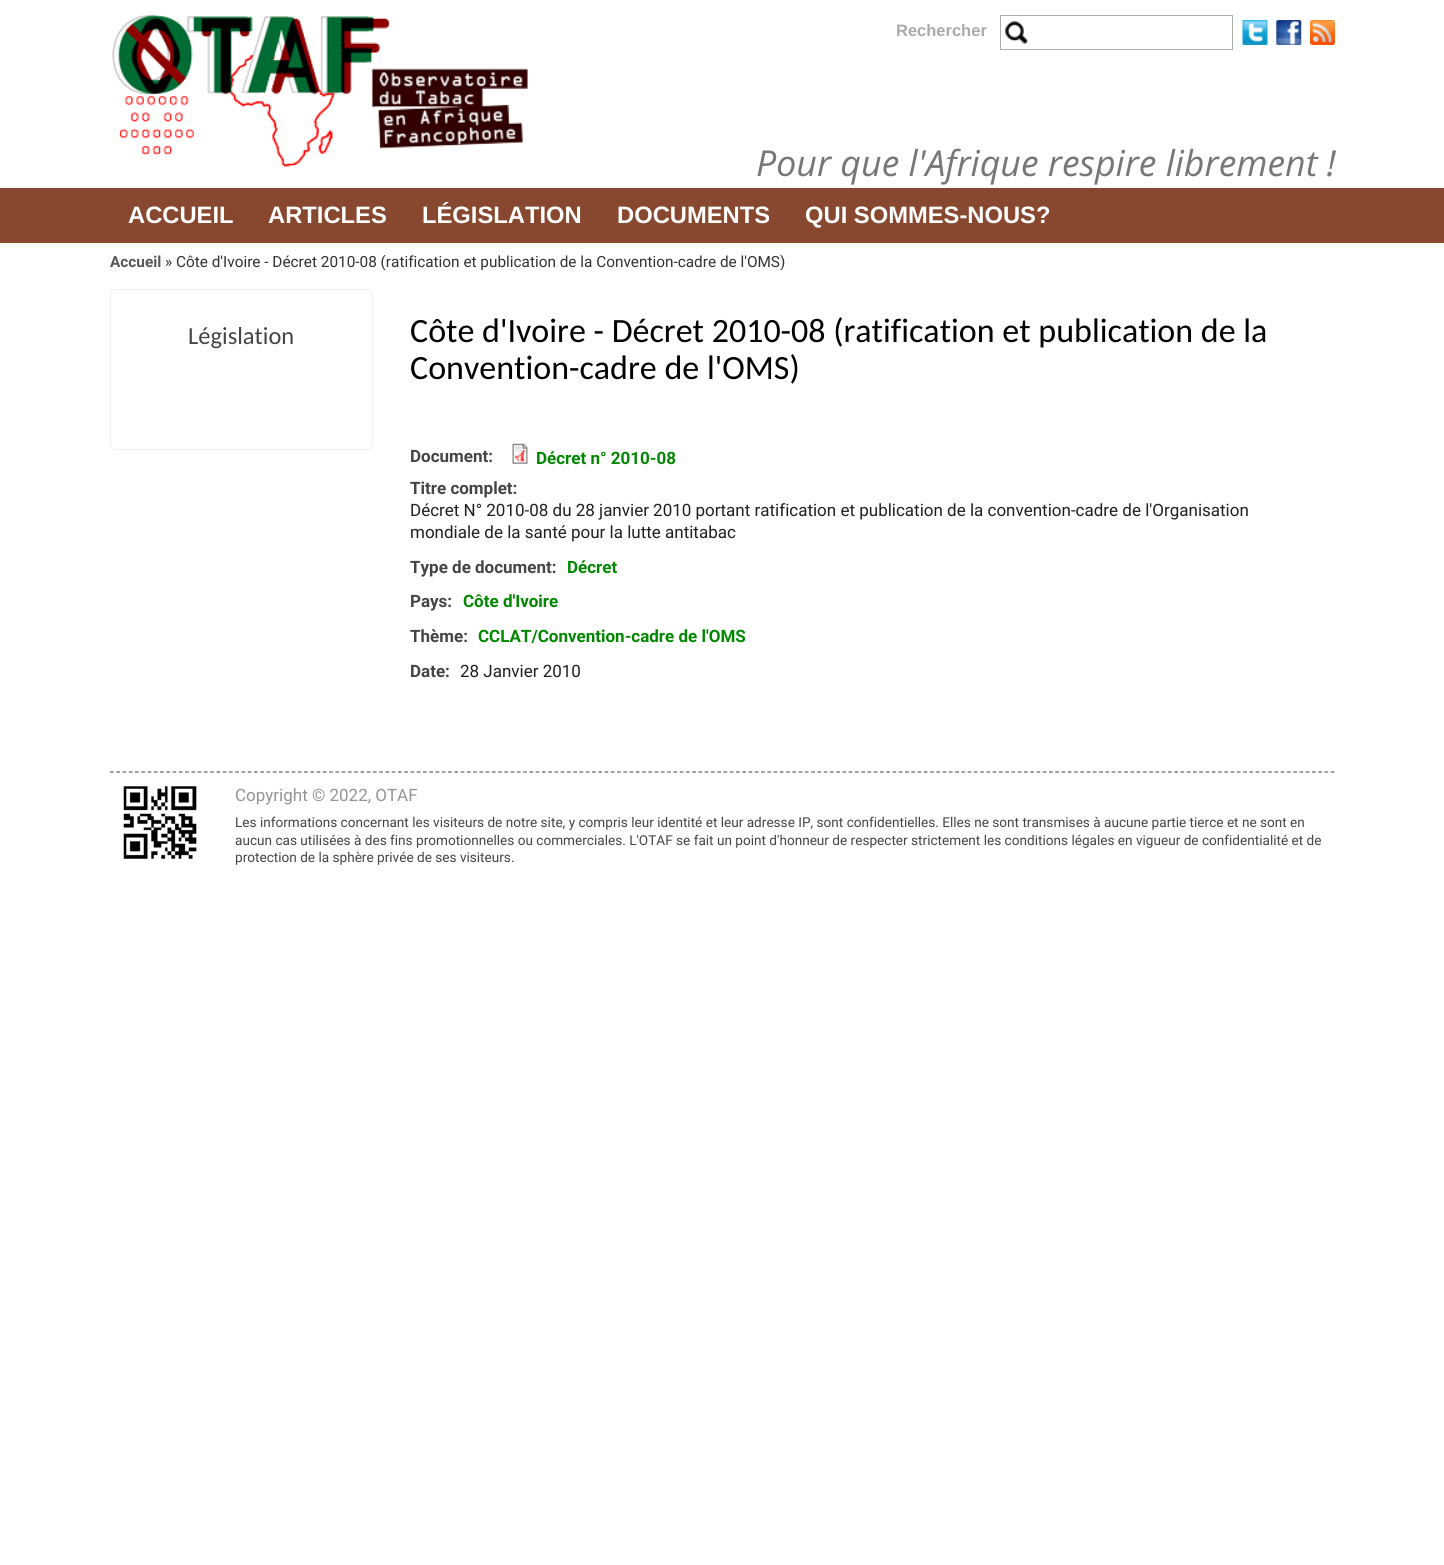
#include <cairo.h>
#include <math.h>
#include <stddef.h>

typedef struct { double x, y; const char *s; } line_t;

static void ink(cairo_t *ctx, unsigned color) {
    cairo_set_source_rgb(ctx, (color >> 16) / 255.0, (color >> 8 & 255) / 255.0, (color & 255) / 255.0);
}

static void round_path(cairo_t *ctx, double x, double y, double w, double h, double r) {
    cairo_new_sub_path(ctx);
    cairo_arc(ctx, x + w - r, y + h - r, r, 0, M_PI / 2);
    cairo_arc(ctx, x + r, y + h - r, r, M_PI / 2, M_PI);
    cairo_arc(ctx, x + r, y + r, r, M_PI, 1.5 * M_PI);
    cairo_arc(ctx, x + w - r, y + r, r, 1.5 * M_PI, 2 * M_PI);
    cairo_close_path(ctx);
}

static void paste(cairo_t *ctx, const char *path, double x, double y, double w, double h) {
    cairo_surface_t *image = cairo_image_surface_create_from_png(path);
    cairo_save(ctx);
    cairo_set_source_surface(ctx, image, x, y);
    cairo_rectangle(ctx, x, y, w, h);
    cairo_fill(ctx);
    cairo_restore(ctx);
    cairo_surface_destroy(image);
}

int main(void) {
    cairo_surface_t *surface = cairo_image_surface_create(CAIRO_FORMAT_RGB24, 1444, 1565);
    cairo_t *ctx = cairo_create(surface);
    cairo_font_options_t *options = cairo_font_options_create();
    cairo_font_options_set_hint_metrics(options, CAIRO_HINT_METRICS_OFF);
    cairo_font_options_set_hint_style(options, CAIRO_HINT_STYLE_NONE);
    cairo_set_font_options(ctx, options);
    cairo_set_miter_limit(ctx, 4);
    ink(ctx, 0xFFFFFF);
    cairo_paint(ctx);
    paste(ctx, "media/1.png", 112, 14, 416, 154);
    cairo_select_font_face(ctx, "Liberation Sans", CAIRO_FONT_SLANT_NORMAL, CAIRO_FONT_WEIGHT_BOLD);
    cairo_set_font_size(ctx, 16.5);
    ink(ctx, 0xAAAAAA);
    cairo_move_to(ctx, 896, 36);
    cairo_show_text(ctx, "Rechercher");
    paste(ctx, "media/2.png", 1005, 21, 23, 23);
    cairo_rectangle(ctx, 1000.5, 15.5, 232, 34);
    ink(ctx, 0xACACAC);
    cairo_set_line_width(ctx, 1);
    cairo_stroke(ctx);
    paste(ctx, "media/3.png", 1242, 20, 26, 25);
    paste(ctx, "media/4.png", 1276, 20, 26, 25);
    paste(ctx, "media/5.png", 1310, 20, 25, 25);
    cairo_select_font_face(ctx, "Open Sans", CAIRO_FONT_SLANT_ITALIC, CAIRO_FONT_WEIGHT_NORMAL);
    cairo_set_font_size(ctx, 35.75);
    ink(ctx, 0x777777);
    cairo_move_to(ctx, 756, 176);
    cairo_show_text(ctx, "Pour que l'Afrique respire librement !");
    ink(ctx, 0x884830);
    cairo_rectangle(ctx, 0, 188, 1444, 55);
    cairo_fill(ctx);
    cairo_select_font_face(ctx, "Liberation Sans", CAIRO_FONT_SLANT_NORMAL, CAIRO_FONT_WEIGHT_BOLD);
    cairo_set_font_size(ctx, 23.75);
    ink(ctx, 0xFFFFFF);
    {
        static const line_t items[] = {
            {128, 223, "ACCUEIL"},
            {268, 223, "ARTICLES"},
            {422, 223, "LÉGISLATION"},
            {617, 223, "DOCUMENTS"},
            {805, 223, "QUI SOMMES-NOUS?"},
        };
        for (size_t i = 0; i < sizeof items / sizeof *items; i++) {
            cairo_move_to(ctx, items[i].x, items[i].y);
            cairo_show_text(ctx, items[i].s);
        }
    }
    cairo_select_font_face(ctx, "Roboto", CAIRO_FONT_SLANT_NORMAL, CAIRO_FONT_WEIGHT_BOLD);
    cairo_set_font_size(ctx, 15.35);
    ink(ctx, 0x585858);
    cairo_move_to(ctx, 110, 267);
    cairo_show_text(ctx, "Accueil");
    cairo_select_font_face(ctx, "Roboto", CAIRO_FONT_SLANT_NORMAL, CAIRO_FONT_WEIGHT_NORMAL);
    ink(ctx, 0x323232);
    cairo_move_to(ctx, 165, 267);
    cairo_show_text(ctx, "» Côte d'Ivoire - Décret 2010-08 (ratification et publication de la Convention-cadre de l'OMS)");
    round_path(ctx, 110.5, 289.5, 262, 160, 4.5);
    ink(ctx, 0xF0F0F0);
    cairo_stroke(ctx);
    cairo_select_font_face(ctx, "Carlito", CAIRO_FONT_SLANT_NORMAL, CAIRO_FONT_WEIGHT_NORMAL);
    cairo_set_font_size(ctx, 24.5);
    ink(ctx, 0x444444);
    cairo_move_to(ctx, 188, 344);
    cairo_show_text(ctx, "Législation");
    cairo_set_font_size(ctx, 34);
    ink(ctx, 0x000000);
    cairo_move_to(ctx, 410, 342);
    cairo_show_text(ctx, "Côte d'Ivoire - Décret 2010-08 (ratification et publication de la");
    cairo_move_to(ctx, 410, 379);
    cairo_show_text(ctx, "Convention-cadre de l'OMS)");
    cairo_select_font_face(ctx, "Roboto", CAIRO_FONT_SLANT_NORMAL, CAIRO_FONT_WEIGHT_BOLD);
    cairo_set_font_size(ctx, 17);
    ink(ctx, 0x444444);
    cairo_move_to(ctx, 410, 462);
    cairo_show_text(ctx, "Document:");
    paste(ctx, "media/6.png", 512, 443, 16, 21);
    ink(ctx, 0x008800);
    cairo_move_to(ctx, 536, 464);
    cairo_show_text(ctx, "Décret n° 2010-08");
    ink(ctx, 0x444444);
    cairo_move_to(ctx, 410, 494);
    cairo_show_text(ctx, "Titre complet:");
    cairo_select_font_face(ctx, "Roboto", CAIRO_FONT_SLANT_NORMAL, CAIRO_FONT_WEIGHT_NORMAL);
    ink(ctx, 0x202020);
    cairo_move_to(ctx, 410, 516);
    cairo_show_text(ctx, "Décret N° 2010-08 du 28 janvier 2010 portant ratification et publication de la convention-cadre de l'Organisation");
    cairo_move_to(ctx, 410, 538);
    cairo_show_text(ctx, "mondiale de la santé pour la lutte antitabac");
    cairo_select_font_face(ctx, "Roboto", CAIRO_FONT_SLANT_NORMAL, CAIRO_FONT_WEIGHT_BOLD);
    ink(ctx, 0x444444);
    cairo_move_to(ctx, 410, 573);
    cairo_show_text(ctx, "Type de document:");
    ink(ctx, 0x008800);
    cairo_move_to(ctx, 567, 573);
    cairo_show_text(ctx, "Décret");
    ink(ctx, 0x444444);
    cairo_move_to(ctx, 410, 607);
    cairo_show_text(ctx, "Pays:");
    ink(ctx, 0x008800);
    cairo_move_to(ctx, 463, 607);
    cairo_show_text(ctx, "Côte d'Ivoire");
    ink(ctx, 0x444444);
    cairo_move_to(ctx, 410, 642);
    cairo_show_text(ctx, "Thème:");
    ink(ctx, 0x008800);
    cairo_move_to(ctx, 478, 642);
    cairo_show_text(ctx, "CCLAT/Convention-cadre de l'OMS");
    ink(ctx, 0x444444);
    cairo_move_to(ctx, 410, 677);
    cairo_show_text(ctx, "Date:");
    cairo_select_font_face(ctx, "Roboto", CAIRO_FONT_SLANT_NORMAL, CAIRO_FONT_WEIGHT_NORMAL);
    ink(ctx, 0x202020);
    cairo_move_to(ctx, 460, 677);
    cairo_show_text(ctx, "28 Janvier 2010");
    cairo_new_path(ctx);
    cairo_move_to(ctx, 110, 772);
    cairo_line_to(ctx, 1335, 772);
    ink(ctx, 0x656565);
    cairo_set_line_width(ctx, 1.2);
    cairo_set_dash(ctx, (double[]){3.75, 2.51}, 2, 0);
    cairo_stroke(ctx);
    paste(ctx, "media/7.png", 123, 786, 74, 73);
    ink(ctx, 0x949494);
    cairo_move_to(ctx, 235, 801);
    cairo_show_text(ctx, "Copyright © 2022, OTAF");
    cairo_set_font_size(ctx, 13.6);
    ink(ctx, 0x444444);
    {
        static const line_t items[] = {
            {235, 827, "Les informations concernant les visiteurs de notre site, y compris leur identité et leur adresse IP, sont confidentielles. Elles ne sont transmises à aucune partie tierce et ne sont en"},
            {235, 845, "aucun cas utilisées à des fins promotionnelles ou commerciales. L'OTAF se fait un point d'honneur de respecter strictement les conditions légales en vigueur de confidentialité et de"},
            {235, 862, "protection de la sphère privée de ses visiteurs."},
        };
        for (size_t i = 0; i < sizeof items / sizeof *items; i++) {
            cairo_move_to(ctx, items[i].x, items[i].y);
            cairo_show_text(ctx, items[i].s);
        }
    }
    cairo_surface_write_to_png(surface, "image.png");
    cairo_font_options_destroy(options);
    cairo_destroy(ctx);
    cairo_surface_destroy(surface);
    return 0;
}
